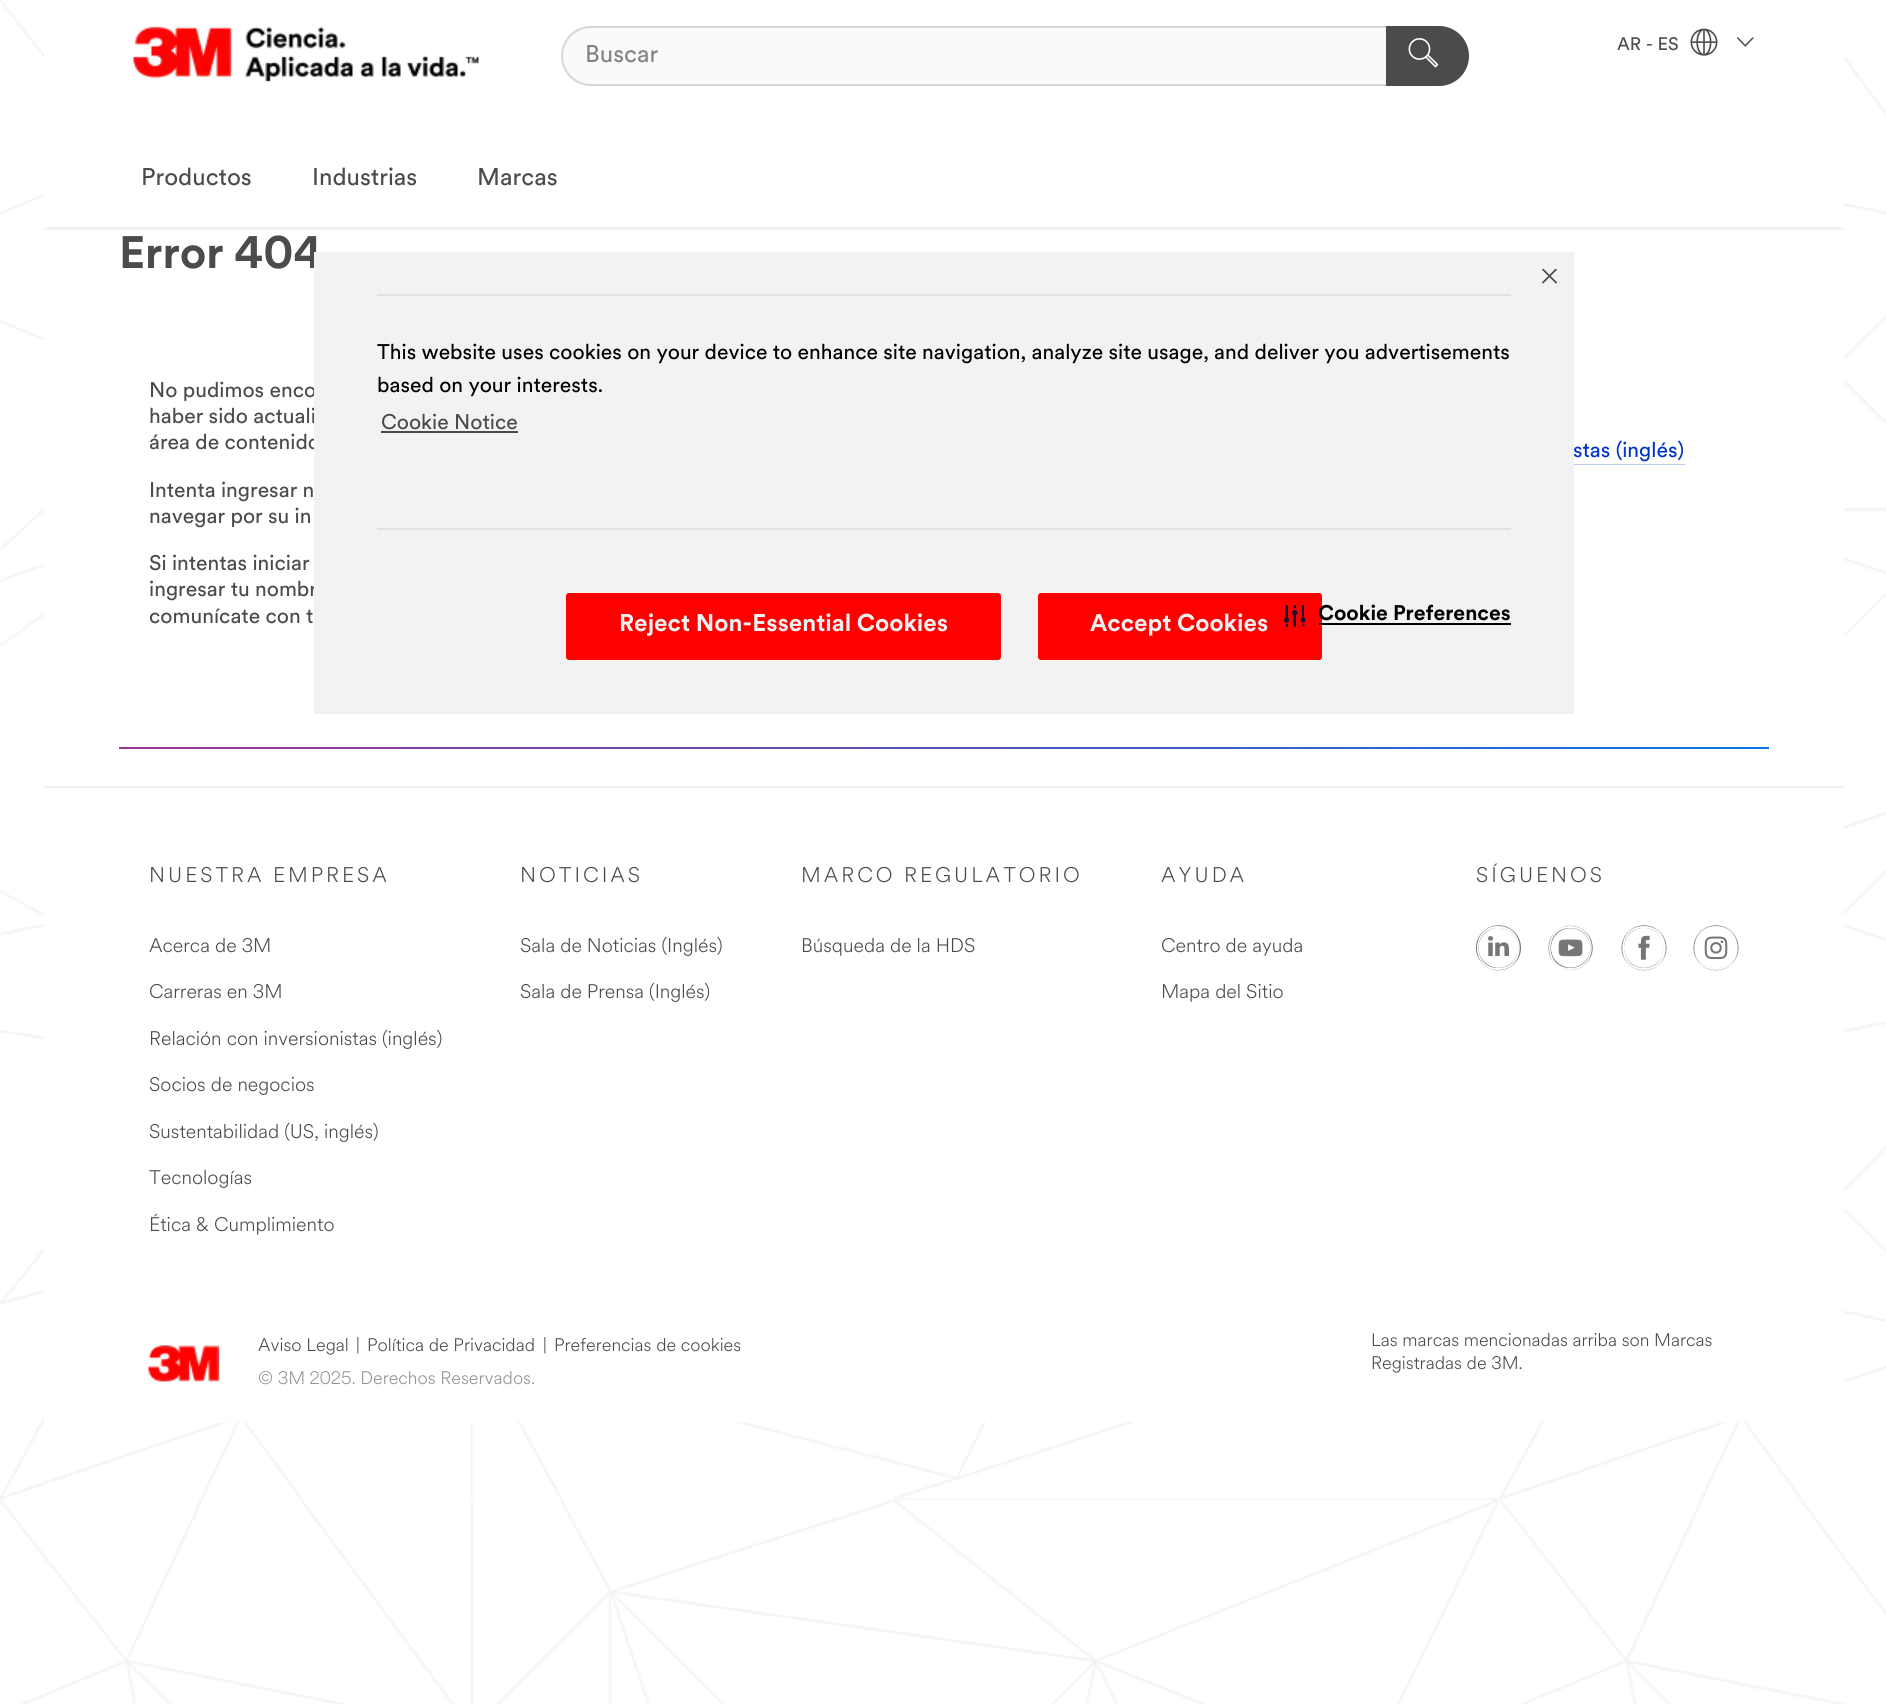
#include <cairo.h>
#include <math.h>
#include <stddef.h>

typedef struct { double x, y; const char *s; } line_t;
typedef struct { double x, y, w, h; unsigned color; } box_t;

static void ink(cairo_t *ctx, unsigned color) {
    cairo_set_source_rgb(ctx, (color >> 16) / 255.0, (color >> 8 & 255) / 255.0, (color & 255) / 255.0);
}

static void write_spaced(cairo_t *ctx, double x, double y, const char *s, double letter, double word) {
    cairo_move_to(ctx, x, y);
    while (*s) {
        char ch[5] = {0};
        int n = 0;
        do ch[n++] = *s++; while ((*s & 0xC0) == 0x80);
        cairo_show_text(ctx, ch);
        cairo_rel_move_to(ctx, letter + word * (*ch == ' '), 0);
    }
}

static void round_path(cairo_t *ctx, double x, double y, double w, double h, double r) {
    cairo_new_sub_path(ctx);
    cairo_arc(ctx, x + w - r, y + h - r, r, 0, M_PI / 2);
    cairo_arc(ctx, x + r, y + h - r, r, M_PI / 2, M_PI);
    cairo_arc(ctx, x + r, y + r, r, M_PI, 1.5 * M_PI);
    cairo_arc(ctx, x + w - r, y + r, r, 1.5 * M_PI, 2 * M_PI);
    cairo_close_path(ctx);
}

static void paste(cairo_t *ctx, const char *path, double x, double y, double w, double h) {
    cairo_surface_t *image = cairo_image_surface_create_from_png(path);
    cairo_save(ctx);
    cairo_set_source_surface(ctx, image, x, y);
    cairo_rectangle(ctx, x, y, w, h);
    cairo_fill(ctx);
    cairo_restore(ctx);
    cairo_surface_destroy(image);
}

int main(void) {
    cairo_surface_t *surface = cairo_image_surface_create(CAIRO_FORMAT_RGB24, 1886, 1704);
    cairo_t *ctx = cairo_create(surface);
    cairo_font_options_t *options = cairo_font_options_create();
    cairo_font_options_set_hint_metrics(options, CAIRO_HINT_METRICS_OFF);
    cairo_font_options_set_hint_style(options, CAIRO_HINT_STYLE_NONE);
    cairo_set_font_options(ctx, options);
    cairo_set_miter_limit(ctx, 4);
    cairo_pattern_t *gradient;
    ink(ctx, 0xFFFFFF);
    cairo_paint(ctx);
    paste(ctx, "media/1.png", 0, 0, 1886, 1704);
    ink(ctx, 0xFFFFFF);
    cairo_rectangle(ctx, 44, 0, 1800, 1422);
    cairo_fill(ctx);
    cairo_select_font_face(ctx, "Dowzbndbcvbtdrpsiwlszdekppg", CAIRO_FONT_SLANT_NORMAL, CAIRO_FONT_WEIGHT_NORMAL);
    cairo_set_font_size(ctx, 18);
    ink(ctx, 0x4B4B4B);
    cairo_move_to(ctx, 1617, 50);
    cairo_show_text(ctx, "AR - ES");
    paste(ctx, "media/2.png", 1690, 28, 28, 28);
    paste(ctx, "media/3.png", 1737, 37, 17, 10);
    cairo_set_font_size(ctx, 24);
    {
        static const line_t items[] = {
            {141, 185, "Productos"},
            {312, 185, "Industrias"},
            {477, 185, "Marcas"},
        };
        for (size_t i = 0; i < sizeof items / sizeof *items; i++) {
            cairo_move_to(ctx, items[i].x, items[i].y);
            cairo_show_text(ctx, items[i].s);
        }
    }
    paste(ctx, "media/4.png", 133, 26, 346, 56);
    ink(ctx, 0xFAFAFA);
    round_path(ctx, 562, 27, 906, 58, 29);
    cairo_fill_preserve(ctx);
    ink(ctx, 0xD6D6D6);
    cairo_stroke(ctx);
    ink(ctx, 0x838383);
    cairo_move_to(ctx, 585, 62);
    cairo_show_text(ctx, "Buscar");
    ink(ctx, 0x4B4B4B);
    cairo_new_path(ctx);
    cairo_move_to(ctx, 1386, 26);
    cairo_line_to(ctx, 1439, 26);
    cairo_curve_to(ctx, 1455.5, 26, 1469, 39.5, 1469, 56);
    cairo_curve_to(ctx, 1469, 72.5, 1455.5, 86, 1439, 86);
    cairo_line_to(ctx, 1386, 86);
    cairo_close_path(ctx);
    cairo_fill(ctx);
    paste(ctx, "media/5.png", 1408, 38, 31, 30);
    ink(ctx, 0xF2F2F2);
    cairo_rectangle(ctx, 44, 227, 1800, 3);
    cairo_fill(ctx);
    cairo_select_font_face(ctx, "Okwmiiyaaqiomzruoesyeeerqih", CAIRO_FONT_SLANT_NORMAL, CAIRO_FONT_WEIGHT_BOLD);
    cairo_set_font_size(ctx, 45);
    ink(ctx, 0x4B4B4B);
    cairo_move_to(ctx, 119, 268);
    cairo_show_text(ctx, "Error 404");
    cairo_select_font_face(ctx, "Dowzbndbcvbtdrpsiwlszdekppg", CAIRO_FONT_SLANT_NORMAL, CAIRO_FONT_WEIGHT_NORMAL);
    cairo_set_font_size(ctx, 21);
    {
        static const line_t items[] = {
            {149, 397, "No pudimos enco"},
            {149, 423, "haber sido actuali"},
            {149, 449, "área de contenido"},
            {149, 497, "Intenta ingresar n"},
            {149, 523, "navegar por su in"},
            {149, 570, "Si intentas iniciar"},
            {149, 596, "ingresar tu nombr"},
            {149, 623, "comunícate con t"},
        };
        for (size_t i = 0; i < sizeof items / sizeof *items; i++) {
            cairo_move_to(ctx, items[i].x, items[i].y);
            cairo_show_text(ctx, items[i].s);
        }
    }
    ink(ctx, 0x0033CC);
    cairo_move_to(ctx, 1573, 457);
    cairo_show_text(ctx, "stas (inglés)");
    ink(ctx, 0xBFCCF2);
    cairo_rectangle(ctx, 1574, 464, 111, 1);
    cairo_fill(ctx);
    gradient = cairo_pattern_create_linear(119, 747, 1769, 747);
    cairo_pattern_add_color_stop_rgba(gradient, 0, 0.624, 0.208, 0.576, 1);
    cairo_pattern_add_color_stop_rgba(gradient, 1, 0.039, 0.459, 0.906, 1);
    cairo_set_source(ctx, gradient);
    cairo_pattern_destroy(gradient);
    cairo_rectangle(ctx, 119, 747, 1650, 2);
    cairo_fill(ctx);
    ink(ctx, 0xF2F2F2);
    cairo_rectangle(ctx, 44, 786, 1800, 2);
    cairo_fill(ctx);
    cairo_select_font_face(ctx, "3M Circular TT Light", CAIRO_FONT_SLANT_NORMAL, CAIRO_FONT_WEIGHT_NORMAL);
    ink(ctx, 0x4B4B4B);
    write_spaced(ctx, 149, 882, "NUESTRA EMPRESA", 3, 0);
    cairo_set_font_size(ctx, 19.5);
    {
        static const line_t items[] = {
            {149, 952, "Acerca de 3M"},
            {149, 998, "Carreras en 3M"},
            {149, 1045, "Relación con inversionistas (inglés)"},
            {149, 1091, "Socios de negocios"},
            {149, 1138, "Sustentabilidad (US, inglés)"},
            {149, 1184, "Tecnologías"},
            {149, 1231, "Ética & Cumplimiento"},
        };
        for (size_t i = 0; i < sizeof items / sizeof *items; i++) {
            cairo_move_to(ctx, items[i].x, items[i].y);
            cairo_show_text(ctx, items[i].s);
        }
    }
    cairo_set_font_size(ctx, 21);
    write_spaced(ctx, 520, 882, "NOTICIAS", 3, 0);
    cairo_set_font_size(ctx, 19.5);
    cairo_move_to(ctx, 520, 952);
    cairo_show_text(ctx, "Sala de Noticias (Inglés)");
    cairo_move_to(ctx, 520, 998);
    cairo_show_text(ctx, "Sala de Prensa (Inglés)");
    cairo_set_font_size(ctx, 21);
    write_spaced(ctx, 801, 882, "MARCO REGULATORIO", 3, 0);
    cairo_set_font_size(ctx, 19.5);
    cairo_move_to(ctx, 801, 952);
    cairo_show_text(ctx, "Búsqueda de la HDS");
    cairo_set_font_size(ctx, 21);
    write_spaced(ctx, 1161, 882, "AYUDA", 3, 0);
    cairo_set_font_size(ctx, 19.5);
    cairo_move_to(ctx, 1161, 952);
    cairo_show_text(ctx, "Centro de ayuda");
    cairo_move_to(ctx, 1161, 998);
    cairo_show_text(ctx, "Mapa del Sitio");
    cairo_set_font_size(ctx, 21);
    write_spaced(ctx, 1476, 882, "SÍGUENOS", 3, 0);
    paste(ctx, "media/6.png", 1476, 925, 45, 46);
    ink(ctx, 0xFFFFFF);
    cairo_new_path(ctx);
    cairo_move_to(ctx, 1498, 970);
    cairo_curve_to(ctx, 1470, 970, 1470, 926, 1498, 926);
    cairo_curve_to(ctx, 1527, 926, 1527, 970, 1498, 970);
    cairo_close_path(ctx);
    cairo_move_to(ctx, 1498, 928);
    cairo_curve_to(ctx, 1472, 928, 1472, 968, 1498, 968);
    cairo_curve_to(ctx, 1525, 968, 1525, 928, 1498, 928);
    cairo_close_path(ctx);
    cairo_fill(ctx);
    paste(ctx, "media/7.png", 1548, 925, 45, 45);
    cairo_new_path(ctx);
    cairo_move_to(ctx, 1570, 970);
    cairo_curve_to(ctx, 1542, 970, 1542, 926, 1570, 926);
    cairo_curve_to(ctx, 1599, 926, 1599, 970, 1570, 970);
    cairo_close_path(ctx);
    cairo_move_to(ctx, 1570, 928);
    cairo_curve_to(ctx, 1544, 928, 1544, 968, 1570, 968);
    cairo_curve_to(ctx, 1597, 968, 1597, 928, 1570, 928);
    cairo_close_path(ctx);
    cairo_fill(ctx);
    paste(ctx, "media/8.png", 1621, 925, 46, 46);
    cairo_new_path(ctx);
    cairo_move_to(ctx, 1644, 970);
    cairo_curve_to(ctx, 1615, 970, 1615, 926, 1644, 926);
    cairo_curve_to(ctx, 1673, 926, 1673, 970, 1644, 970);
    cairo_close_path(ctx);
    cairo_move_to(ctx, 1644, 928);
    cairo_curve_to(ctx, 1617, 928, 1618, 968, 1644, 968);
    cairo_curve_to(ctx, 1670, 968, 1670, 928, 1644, 928);
    cairo_close_path(ctx);
    cairo_fill(ctx);
    paste(ctx, "media/9.png", 1693, 925, 46, 46);
    cairo_new_path(ctx);
    cairo_move_to(ctx, 1716, 970);
    cairo_curve_to(ctx, 1687, 970, 1687, 926, 1716, 926);
    cairo_curve_to(ctx, 1745, 926, 1745, 970, 1716, 970);
    cairo_close_path(ctx);
    cairo_move_to(ctx, 1716, 928);
    cairo_curve_to(ctx, 1689, 928, 1690, 968, 1716, 968);
    cairo_curve_to(ctx, 1742, 968, 1742, 928, 1716, 928);
    cairo_close_path(ctx);
    cairo_fill(ctx);
    cairo_set_font_size(ctx, 18);
    ink(ctx, 0x4B4B4B);
    cairo_move_to(ctx, 1371, 1346);
    cairo_show_text(ctx, "Las marcas mencionadas arriba son Marcas");
    cairo_move_to(ctx, 1371, 1369);
    cairo_show_text(ctx, "Registradas de 3M.");
    paste(ctx, "media/10.png", 148, 1345, 72, 37);
    {
        static const line_t items[] = {
            {258, 1351, "Aviso Legal"},
            {356, 1351, "|"},
            {367, 1351, "Política de Privacidad"},
            {543, 1351, "|"},
            {554, 1351, "Preferencias de cookies"},
        };
        for (size_t i = 0; i < sizeof items / sizeof *items; i++) {
            cairo_move_to(ctx, items[i].x, items[i].y);
            cairo_show_text(ctx, items[i].s);
        }
    }
    ink(ctx, 0x939393);
    cairo_move_to(ctx, 258, 1384);
    cairo_show_text(ctx, "© 3M 2025. Derechos Reservados.");
    {
        static const box_t items[] = {
            {314, 252, 1260, 462, 0xF2F2F2},
            {377, 294, 1134, 2, 0xE1E1E1},
            {377, 528, 1134, 2, 0xE1E1E1},
        };
        for (size_t i = 0; i < sizeof items / sizeof *items; i++) {
            ink(ctx, items[i].color);
            cairo_rectangle(ctx, items[i].x, items[i].y, items[i].w, items[i].h);
            cairo_fill(ctx);
        }
    }
    cairo_select_font_face(ctx, "Dowzbndbcvbtdrpsiwlszdekppg", CAIRO_FONT_SLANT_NORMAL, CAIRO_FONT_WEIGHT_NORMAL);
    cairo_set_font_size(ctx, 21);
    ink(ctx, 0x000000);
    cairo_move_to(ctx, 377, 359);
    cairo_show_text(ctx, "This website uses cookies on your device to enhance site navigation, analyze site usage, and deliver you advertisements");
    cairo_move_to(ctx, 377, 392);
    cairo_show_text(ctx, "based on your interests.");
    ink(ctx, 0x4B4B4B);
    cairo_move_to(ctx, 381, 429);
    cairo_show_text(ctx, "Cookie Notice");
    cairo_rectangle(ctx, 381, 431, 137, 2);
    cairo_fill(ctx);
    paste(ctx, "media/11.png", 1542, 269, 15, 15);
    ink(ctx, 0xFF0000);
    round_path(ctx, 566, 593, 435, 67, 3);
    cairo_fill(ctx);
    cairo_select_font_face(ctx, "Okwmiiyaaqiomzruoesyeeerqih", CAIRO_FONT_SLANT_NORMAL, CAIRO_FONT_WEIGHT_BOLD);
    cairo_set_font_size(ctx, 24);
    ink(ctx, 0xF2F2F2);
    cairo_move_to(ctx, 619, 631);
    cairo_show_text(ctx, "Reject Non-Essential Cookies");
    ink(ctx, 0xFF0000);
    round_path(ctx, 1038, 593, 284, 67, 3);
    cairo_fill(ctx);
    ink(ctx, 0xF2F2F2);
    cairo_move_to(ctx, 1090, 631);
    cairo_show_text(ctx, "Accept Cookies");
    paste(ctx, "media/12.png", 1284, 605, 22, 22);
    cairo_set_font_size(ctx, 21);
    ink(ctx, 0x000000);
    cairo_move_to(ctx, 1318, 620);
    cairo_show_text(ctx, "Cookie Preferences");
    cairo_rectangle(ctx, 1319, 623, 192, 2);
    cairo_fill(ctx);
    cairo_surface_write_to_png(surface, "image.png");
    cairo_font_options_destroy(options);
    cairo_destroy(ctx);
    cairo_surface_destroy(surface);
    return 0;
}
